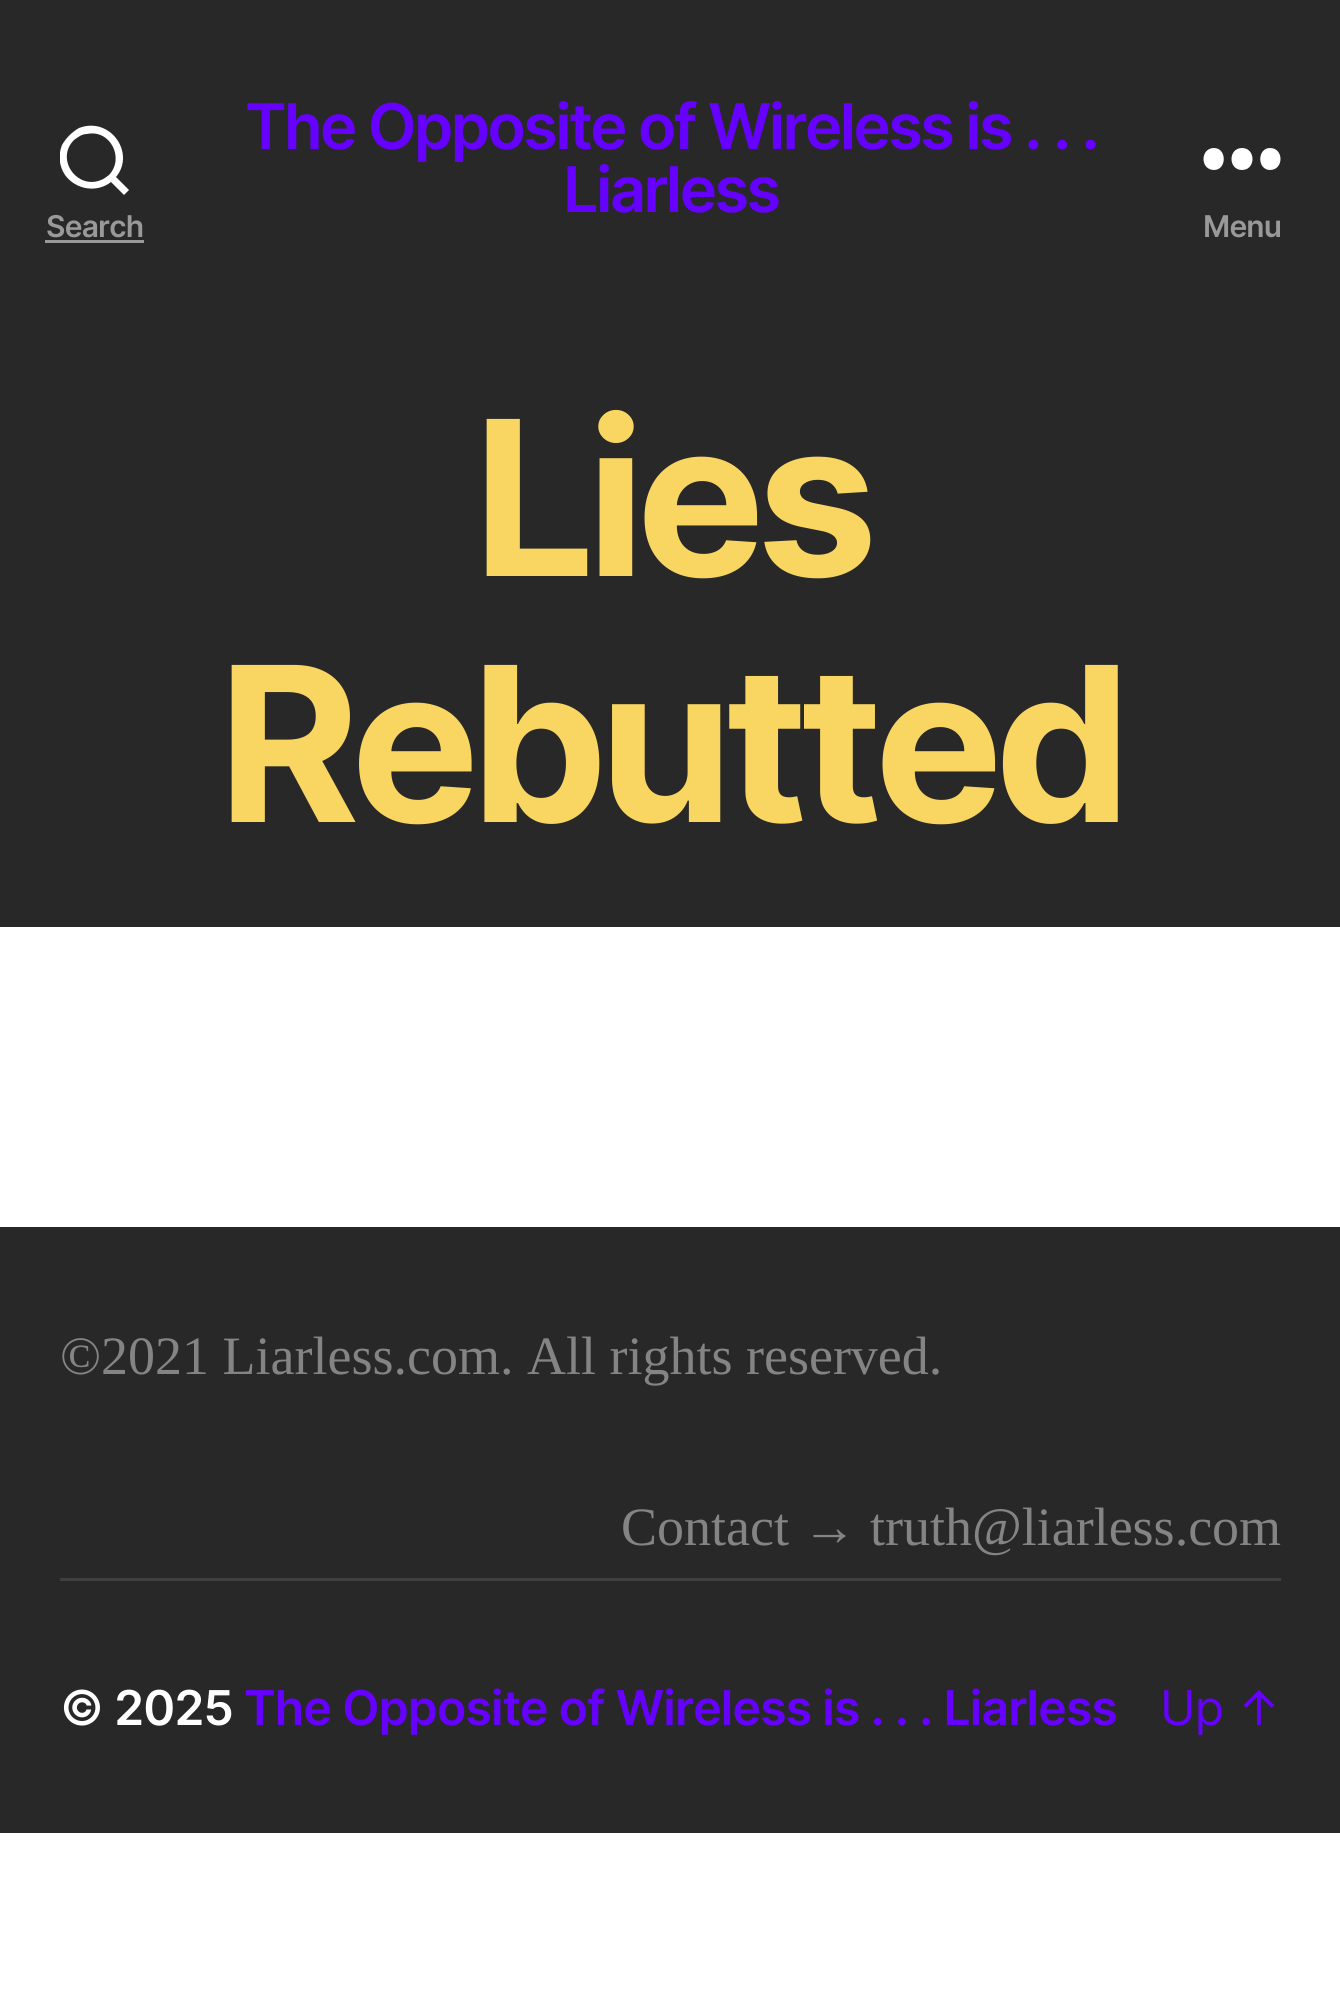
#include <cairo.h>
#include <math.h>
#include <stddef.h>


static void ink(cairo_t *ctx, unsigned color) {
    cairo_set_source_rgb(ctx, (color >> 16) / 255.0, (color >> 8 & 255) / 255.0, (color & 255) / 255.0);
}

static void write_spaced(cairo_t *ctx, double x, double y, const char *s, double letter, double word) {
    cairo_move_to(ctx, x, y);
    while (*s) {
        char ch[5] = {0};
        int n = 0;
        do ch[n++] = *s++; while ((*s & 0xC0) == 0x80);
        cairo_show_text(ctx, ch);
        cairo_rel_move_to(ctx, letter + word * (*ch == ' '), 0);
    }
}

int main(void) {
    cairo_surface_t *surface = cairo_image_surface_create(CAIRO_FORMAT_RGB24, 1340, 1995);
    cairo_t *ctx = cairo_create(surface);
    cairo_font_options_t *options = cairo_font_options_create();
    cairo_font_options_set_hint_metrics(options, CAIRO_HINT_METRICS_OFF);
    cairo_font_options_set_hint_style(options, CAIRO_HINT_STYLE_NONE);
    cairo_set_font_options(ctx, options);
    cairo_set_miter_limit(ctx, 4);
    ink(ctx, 0xFFFFFF);
    cairo_paint(ctx);
    ink(ctx, 0x282828);
    cairo_rectangle(ctx, 0, 0, 1340, 927);
    cairo_fill(ctx);
    cairo_select_font_face(ctx, "Inter SemiBold", CAIRO_FONT_SLANT_NORMAL, CAIRO_FONT_WEIGHT_NORMAL);
    cairo_set_font_size(ctx, 63);
    ink(ctx, 0x6600FF);
    write_spaced(ctx, 245, 149, "The Opposite of Wireless is . . .", -2.6, 0);
    write_spaced(ctx, 563, 212, "Liarless", -2.6, 0);
    cairo_save(ctx);
    cairo_rectangle(ctx, 60, 123, 69, 75);
    cairo_clip(ctx);
    ink(ctx, 0xFFFFFF);
    cairo_new_path(ctx);
    cairo_move_to(ctx, 116, 177);
    cairo_line_to(ctx, 129, 190);
    cairo_line_to(ctx, 124, 195);
    cairo_line_to(ctx, 111, 182);
    cairo_curve_to(ctx, 97, 193, 76, 190, 65, 175);
    cairo_curve_to(ctx, 59, 166, 58, 155, 62, 145);
    cairo_curve_to(ctx, 66, 138, 72, 132, 79, 128);
    cairo_curve_to(ctx, 110, 116, 136, 153, 116, 177);
    cairo_close_path(ctx);
    cairo_move_to(ctx, 109, 175);
    cairo_curve_to(ctx, 125, 158, 110, 129, 87, 134);
    cairo_curve_to(ctx, 82, 134, 78, 137, 74, 140);
    cairo_curve_to(ctx, 55, 159, 77, 190, 101, 180);
    cairo_curve_to(ctx, 104, 179, 106, 177, 109, 175);
    cairo_close_path(ctx);
    cairo_fill(ctx);
    cairo_restore(ctx);
    cairo_set_font_size(ctx, 30);
    ink(ctx, 0x999999);
    write_spaced(ctx, 46, 237, "Search", -0.8, 0);
    cairo_rectangle(ctx, 45, 240, 99, 3);
    cairo_fill(ctx);
    ink(ctx, 0xFFFFFF);
    cairo_set_fill_rule(ctx, CAIRO_FILL_RULE_EVEN_ODD);
    cairo_new_path(ctx);
    cairo_move_to(ctx, 1214, 170);
    cairo_curve_to(ctx, 1200, 170, 1200, 148, 1214, 148);
    cairo_curve_to(ctx, 1227, 148, 1227, 170, 1214, 170);
    cairo_close_path(ctx);
    cairo_move_to(ctx, 1242, 170);
    cairo_curve_to(ctx, 1228, 170, 1228, 148, 1242, 148);
    cairo_curve_to(ctx, 1256, 148, 1256, 170, 1242, 170);
    cairo_close_path(ctx);
    cairo_move_to(ctx, 1270, 170);
    cairo_curve_to(ctx, 1257, 170, 1257, 148, 1270, 148);
    cairo_curve_to(ctx, 1284, 148, 1284, 170, 1270, 170);
    cairo_close_path(ctx);
    cairo_fill(ctx);
    ink(ctx, 0x999999);
    write_spaced(ctx, 1203, 237, "Menu", -0.8, 0);
    cairo_select_font_face(ctx, "Inter", CAIRO_FONT_SLANT_NORMAL, CAIRO_FONT_WEIGHT_BOLD);
    cairo_set_font_size(ctx, 216);
    ink(ctx, 0xF9D661);
    write_spaced(ctx, 473, 576, "Lies", -9, 0);
    write_spaced(ctx, 218, 822, "Rebutted", -9, 0);
    ink(ctx, 0x282828);
    cairo_rectangle(ctx, 0, 1227, 1340, 606);
    cairo_fill(ctx);
    ink(ctx, 0x3F3F3F);
    cairo_rectangle(ctx, 60, 1578, 1221, 3);
    cairo_fill(ctx);
    cairo_select_font_face(ctx, "Liberation Serif", CAIRO_FONT_SLANT_NORMAL, CAIRO_FONT_WEIGHT_NORMAL);
    cairo_set_font_size(ctx, 54);
    ink(ctx, 0x848484);
    cairo_move_to(ctx, 60, 1374);
    cairo_show_text(ctx, "©2021 Liarless.com. All rights reserved.");
    cairo_move_to(ctx, 621, 1545);
    cairo_show_text(ctx, "Contact → truth@liarless.com");
    cairo_select_font_face(ctx, "Inter SemiBold", CAIRO_FONT_SLANT_NORMAL, CAIRO_FONT_WEIGHT_NORMAL);
    cairo_set_font_size(ctx, 48);
    ink(ctx, 0xFFFFFF);
    write_spaced(ctx, 60, 1725, "© 2025", -0.8, 0);
    ink(ctx, 0x6600FF);
    write_spaced(ctx, 244, 1725, "The Opposite of Wireless is . . . Liarless", -0.8, 0);
    cairo_select_font_face(ctx, "Inter", CAIRO_FONT_SLANT_NORMAL, CAIRO_FONT_WEIGHT_NORMAL);
    write_spaced(ctx, 1160, 1725, "Up ↑", -0.8, 0);
    cairo_surface_write_to_png(surface, "image.png");
    cairo_font_options_destroy(options);
    cairo_destroy(ctx);
    cairo_surface_destroy(surface);
    return 0;
}
